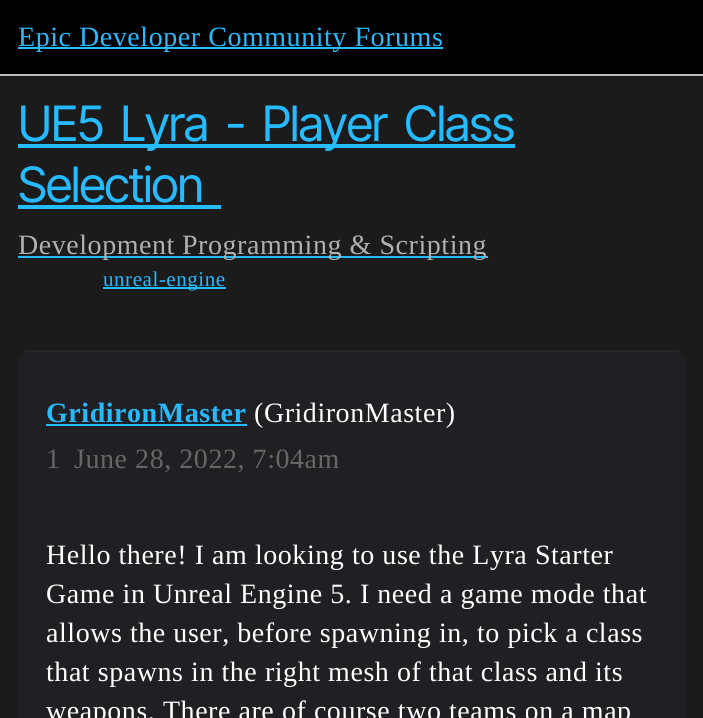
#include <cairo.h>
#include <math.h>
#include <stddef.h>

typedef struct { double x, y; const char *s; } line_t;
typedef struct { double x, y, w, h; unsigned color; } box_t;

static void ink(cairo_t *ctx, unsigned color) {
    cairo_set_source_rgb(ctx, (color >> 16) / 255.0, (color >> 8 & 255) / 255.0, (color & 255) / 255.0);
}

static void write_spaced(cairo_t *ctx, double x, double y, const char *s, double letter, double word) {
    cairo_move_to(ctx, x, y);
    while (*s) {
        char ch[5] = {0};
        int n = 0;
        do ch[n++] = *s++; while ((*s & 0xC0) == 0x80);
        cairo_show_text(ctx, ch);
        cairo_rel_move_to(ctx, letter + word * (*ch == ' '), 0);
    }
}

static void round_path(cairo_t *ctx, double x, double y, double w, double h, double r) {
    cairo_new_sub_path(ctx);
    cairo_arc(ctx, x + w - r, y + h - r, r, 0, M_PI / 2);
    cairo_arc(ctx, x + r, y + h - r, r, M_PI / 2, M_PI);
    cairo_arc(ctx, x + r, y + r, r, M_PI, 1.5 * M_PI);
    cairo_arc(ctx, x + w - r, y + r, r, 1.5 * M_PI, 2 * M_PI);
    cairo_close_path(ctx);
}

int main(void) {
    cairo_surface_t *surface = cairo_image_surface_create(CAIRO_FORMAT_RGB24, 703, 718);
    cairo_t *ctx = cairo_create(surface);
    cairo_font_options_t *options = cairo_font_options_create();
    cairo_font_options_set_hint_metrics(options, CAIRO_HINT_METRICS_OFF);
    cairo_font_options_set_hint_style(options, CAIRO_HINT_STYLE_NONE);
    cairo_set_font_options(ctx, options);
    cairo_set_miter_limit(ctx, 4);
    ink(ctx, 0x1B1B1B);
    cairo_paint(ctx);
    {
        static const box_t items[] = {
            {0, 0, 703, 74, 0x000000},
            {0, 74, 703, 2, 0xBDBDBD},
            {18, 47, 425, 2, 0x26BBFF},
        };
        for (size_t i = 0; i < sizeof items / sizeof *items; i++) {
            ink(ctx, items[i].color);
            cairo_rectangle(ctx, items[i].x, items[i].y, items[i].w, items[i].h);
            cairo_fill(ctx);
        }
    }
    cairo_select_font_face(ctx, "Liberation Serif", CAIRO_FONT_SLANT_NORMAL, CAIRO_FONT_WEIGHT_NORMAL);
    cairo_set_font_size(ctx, 28);
    write_spaced(ctx, 18, 46, "Epic Developer Community Forums", 0.55, 0);
    cairo_rectangle(ctx, 18, 144, 497, 4);
    cairo_fill(ctx);
    cairo_select_font_face(ctx, "Inter Tight", CAIRO_FONT_SLANT_NORMAL, CAIRO_FONT_WEIGHT_NORMAL);
    cairo_set_font_size(ctx, 48.75);
    write_spaced(ctx, 18, 141, "UE5 Lyra - Player Class", -0.9, 7);
    write_spaced(ctx, 18, 202, "Selection", -0.9, 0);
    cairo_rectangle(ctx, 18, 205, 203, 4);
    cairo_fill(ctx);
    cairo_rectangle(ctx, 18, 256, 470, 2);
    cairo_fill(ctx);
    cairo_select_font_face(ctx, "Liberation Serif", CAIRO_FONT_SLANT_NORMAL, CAIRO_FONT_WEIGHT_NORMAL);
    cairo_set_font_size(ctx, 28);
    ink(ctx, 0xAFB0B0);
    write_spaced(ctx, 18, 254, "Development", 0.55, 0);
    write_spaced(ctx, 182, 254, "Programming & Scripting", 0.55, 0);
    ink(ctx, 0x26BBFF);
    cairo_rectangle(ctx, 103, 287, 123, 2);
    cairo_fill(ctx);
    cairo_set_font_size(ctx, 21);
    write_spaced(ctx, 103, 286, "unreal-engine", 0.55, 0);
    ink(ctx, 0x202024);
    round_path(ctx, 18, 350, 668, 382, 14);
    cairo_fill(ctx);
    ink(ctx, 0x28282C);
    cairo_rectangle(ctx, 25, 350, 654, 2);
    cairo_fill(ctx);
    cairo_select_font_face(ctx, "Liberation Serif", CAIRO_FONT_SLANT_NORMAL, CAIRO_FONT_WEIGHT_BOLD);
    cairo_set_font_size(ctx, 28);
    ink(ctx, 0x26BBFF);
    write_spaced(ctx, 46, 422, "GridironMaster", 0.55, 0);
    cairo_rectangle(ctx, 46, 424, 201, 2);
    cairo_fill(ctx);
    cairo_select_font_face(ctx, "Liberation Serif", CAIRO_FONT_SLANT_NORMAL, CAIRO_FONT_WEIGHT_NORMAL);
    ink(ctx, 0xFFFFFF);
    write_spaced(ctx, 254, 422, "(GridironMaster)", 0.55, 0);
    ink(ctx, 0x666666);
    write_spaced(ctx, 46, 468, "1", 0.55, 0);
    write_spaced(ctx, 74, 468, "June 28, 2022, 7:04am", 0.55, 0);
    ink(ctx, 0xFFFFFF);
    {
        static const line_t items[] = {
            {46, 564, "Hello there! I am looking to use the Lyra Starter"},
            {46, 603, "Game in Unreal Engine 5. I need a game mode that"},
            {46, 642, "allows the user, before spawning in, to pick a class"},
            {46, 681, "that spawns in the right mesh of that class and its"},
            {46, 720, "weapons. There are of course two teams on a map"},
        };
        for (size_t i = 0; i < sizeof items / sizeof *items; i++) {
            write_spaced(ctx, items[i].x, items[i].y, items[i].s, 0.55, 0);
        }
    }
    cairo_surface_write_to_png(surface, "image.png");
    cairo_font_options_destroy(options);
    cairo_destroy(ctx);
    cairo_surface_destroy(surface);
    return 0;
}
